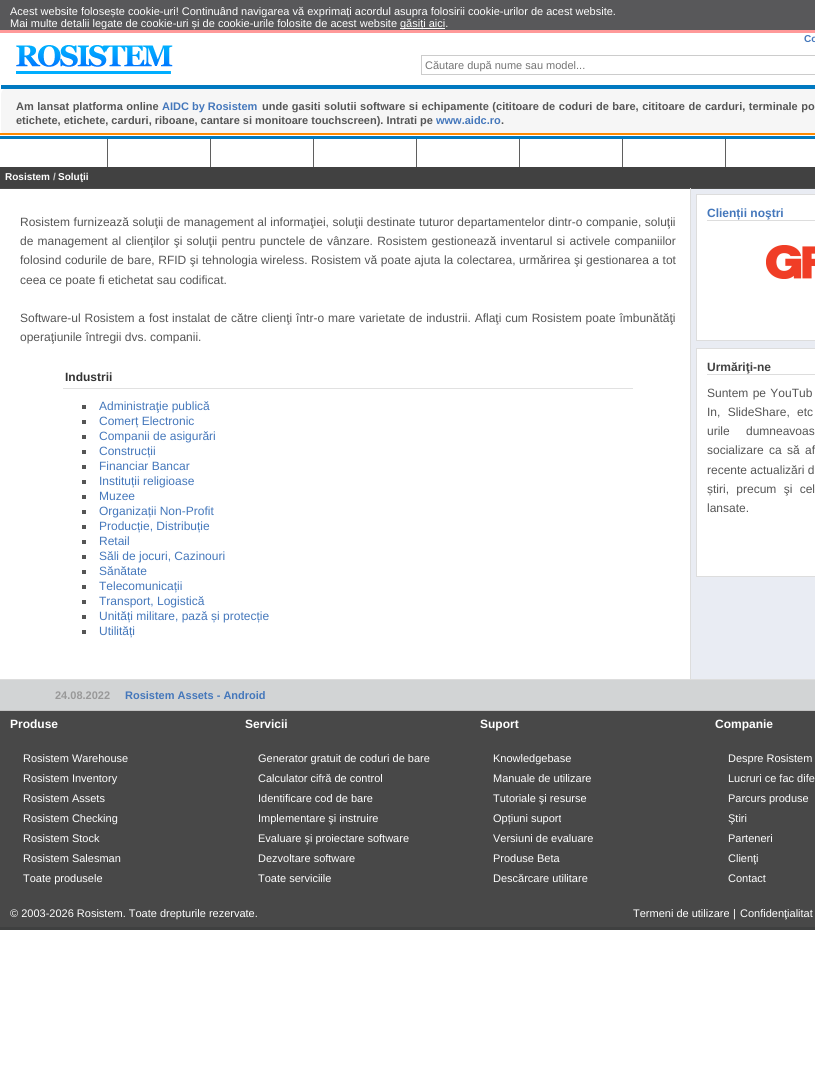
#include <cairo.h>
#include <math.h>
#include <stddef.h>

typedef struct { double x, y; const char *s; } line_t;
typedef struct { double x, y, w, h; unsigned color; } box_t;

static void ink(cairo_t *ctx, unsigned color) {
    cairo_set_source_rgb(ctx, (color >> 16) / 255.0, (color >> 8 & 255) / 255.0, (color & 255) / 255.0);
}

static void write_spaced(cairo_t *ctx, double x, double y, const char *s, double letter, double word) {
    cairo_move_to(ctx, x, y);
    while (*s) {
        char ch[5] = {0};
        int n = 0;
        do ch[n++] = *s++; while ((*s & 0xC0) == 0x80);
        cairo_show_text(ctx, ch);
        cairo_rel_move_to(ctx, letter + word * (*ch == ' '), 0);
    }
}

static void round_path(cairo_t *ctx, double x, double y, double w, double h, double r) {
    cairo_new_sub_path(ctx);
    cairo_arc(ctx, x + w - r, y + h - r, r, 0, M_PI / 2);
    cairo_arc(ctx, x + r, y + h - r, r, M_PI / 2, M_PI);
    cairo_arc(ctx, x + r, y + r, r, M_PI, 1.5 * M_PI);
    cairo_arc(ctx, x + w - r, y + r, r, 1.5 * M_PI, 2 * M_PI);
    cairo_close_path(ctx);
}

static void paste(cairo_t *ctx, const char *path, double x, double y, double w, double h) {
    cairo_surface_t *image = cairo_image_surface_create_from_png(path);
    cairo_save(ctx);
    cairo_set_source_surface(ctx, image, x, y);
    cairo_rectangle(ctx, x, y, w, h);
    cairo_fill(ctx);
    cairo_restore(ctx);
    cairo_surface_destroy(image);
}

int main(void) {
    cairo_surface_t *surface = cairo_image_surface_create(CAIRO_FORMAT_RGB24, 815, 1075);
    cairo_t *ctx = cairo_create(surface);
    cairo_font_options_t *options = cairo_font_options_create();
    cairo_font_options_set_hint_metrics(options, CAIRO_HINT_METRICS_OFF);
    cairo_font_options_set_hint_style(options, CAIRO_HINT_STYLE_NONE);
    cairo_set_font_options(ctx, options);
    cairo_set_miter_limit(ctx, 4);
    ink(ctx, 0xFFFFFF);
    cairo_paint(ctx);
    ink(ctx, 0x58585A);
    cairo_rectangle(ctx, 0, 0, 815, 30);
    cairo_fill(ctx);
    ink(ctx, 0xFF9999);
    cairo_rectangle(ctx, 0, 30, 815, 3);
    cairo_fill(ctx);
    cairo_select_font_face(ctx, "Liberation Sans", CAIRO_FONT_SLANT_NORMAL, CAIRO_FONT_WEIGHT_NORMAL);
    cairo_set_font_size(ctx, 11);
    ink(ctx, 0xFFFFFF);
    cairo_move_to(ctx, 10, 15);
    cairo_show_text(ctx, "Acest website folosește cookie-uri! Continuând navigarea vă exprimați acordul asupra folosirii cookie-urilor de acest website.");
    cairo_move_to(ctx, 10, 27);
    cairo_show_text(ctx, "Mai multe detalii legate de cookie-uri și de cookie-urile folosite de acest website");
    cairo_rectangle(ctx, 400, 28, 45, 1);
    cairo_fill(ctx);
    cairo_move_to(ctx, 400, 27);
    cairo_show_text(ctx, "găsiți aici.");
    paste(ctx, "media/1.png", 16, 45, 157, 29);
    cairo_select_font_face(ctx, "Liberation Sans", CAIRO_FONT_SLANT_NORMAL, CAIRO_FONT_WEIGHT_BOLD);
    cairo_set_font_size(ctx, 10);
    ink(ctx, 0x4477BB);
    cairo_move_to(ctx, 804, 42);
    cairo_show_text(ctx, "Co");
    cairo_rectangle(ctx, 421.5, 55.5, 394, 19);
    ink(ctx, 0xCCCCCC);
    cairo_set_line_width(ctx, 1);
    cairo_stroke(ctx);
    cairo_select_font_face(ctx, "Liberation Sans", CAIRO_FONT_SLANT_NORMAL, CAIRO_FONT_WEIGHT_NORMAL);
    cairo_set_font_size(ctx, 11);
    ink(ctx, 0x757575);
    cairo_move_to(ctx, 425, 69);
    cairo_show_text(ctx, "Căutare după nume sau model...");
    ink(ctx, 0xF6F6F6);
    round_path(ctx, 1, 87, 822, 50, 8);
    cairo_fill(ctx);
    ink(ctx, 0x0079C1);
    cairo_rectangle(ctx, 1, 85, 814, 4);
    cairo_fill(ctx);
    cairo_select_font_face(ctx, "Liberation Sans", CAIRO_FONT_SLANT_NORMAL, CAIRO_FONT_WEIGHT_BOLD);
    ink(ctx, 0x555555);
    write_spaced(ctx, 16, 110, "Am lansat platforma online", 0, 0.5);
    ink(ctx, 0x4477BB);
    cairo_move_to(ctx, 162, 110);
    cairo_show_text(ctx, "AIDC by Rosistem");
    ink(ctx, 0x555555);
    write_spaced(ctx, 262, 110, "unde gasiti solutii software si echipamente (cititoare de coduri de bare, cititoare de carduri, terminale po", 0, 0.5);
    cairo_move_to(ctx, 16, 124);
    cairo_show_text(ctx, "etichete, etichete, carduri, riboane, cantare si monitoare touchscreen). Intrati pe");
    ink(ctx, 0x4477BB);
    cairo_move_to(ctx, 436, 124);
    cairo_show_text(ctx, "www.aidc.ro");
    ink(ctx, 0x555555);
    cairo_move_to(ctx, 501, 124);
    cairo_show_text(ctx, ".");
    {
        static const box_t items[] = {
            {0, 133, 815, 2, 0xFF8A00},
            {0, 135, 815, 1, 0xFFFFFF},
            {0, 136, 815, 3, 0x0079C1},
            {107, 139, 1, 28, 0x5F5F5F},
            {210, 139, 1, 28, 0x5F5F5F},
            {313, 139, 1, 28, 0x5F5F5F},
            {416, 139, 1, 28, 0x5F5F5F},
            {519, 139, 1, 28, 0x5F5F5F},
            {622, 139, 1, 28, 0x5F5F5F},
            {725, 139, 1, 28, 0x5F5F5F},
            {0, 167, 815, 21, 0x414141},
            {0, 188, 815, 1, 0x4C4C4C},
        };
        for (size_t i = 0; i < sizeof items / sizeof *items; i++) {
            ink(ctx, items[i].color);
            cairo_rectangle(ctx, items[i].x, items[i].y, items[i].w, items[i].h);
            cairo_fill(ctx);
        }
    }
    cairo_set_font_size(ctx, 10);
    ink(ctx, 0xFFFFFF);
    cairo_move_to(ctx, 5, 180);
    cairo_show_text(ctx, "Rosistem");
    ink(ctx, 0xCCCCCC);
    cairo_move_to(ctx, 53, 180);
    cairo_show_text(ctx, "/");
    ink(ctx, 0xFFFFFF);
    cairo_move_to(ctx, 58, 180);
    cairo_show_text(ctx, "Soluţii");
    cairo_select_font_face(ctx, "Liberation Sans", CAIRO_FONT_SLANT_NORMAL, CAIRO_FONT_WEIGHT_NORMAL);
    cairo_set_font_size(ctx, 12);
    ink(ctx, 0x555555);
    write_spaced(ctx, 20, 226, "Rosistem furnizează soluţii de management al informaţiei, soluţii destinate tuturor departamentelor dintr-o companie, soluţii", 0, 0.25);
    write_spaced(ctx, 20, 245, "de management al clienţilor şi soluţii pentru punctele de vânzare. Rosistem gestionează inventarul si activele companiilor", 0, 0.9);
    write_spaced(ctx, 20, 264, "folosind codurile de bare, RFID şi tehnologia wireless. Rosistem vă poate ajuta la colectarea, urmărirea şi gestionarea a tot", 0, 0.2);
    cairo_move_to(ctx, 20, 284);
    cairo_show_text(ctx, "ceea ce poate fi etichetat sau codificat.");
    write_spaced(ctx, 20, 322, "Software-ul Rosistem a fost instalat de către clienţi într-o mare varietate de industrii. Aflaţi cum Rosistem poate îmbunătăţi", 0, 0.5);
    cairo_move_to(ctx, 20, 341);
    cairo_show_text(ctx, "operaţiunile întregii dvs. companii.");
    ink(ctx, 0xE1E1E1);
    cairo_rectangle(ctx, 63, 388, 570, 1);
    cairo_fill(ctx);
    cairo_select_font_face(ctx, "Liberation Sans", CAIRO_FONT_SLANT_NORMAL, CAIRO_FONT_WEIGHT_BOLD);
    ink(ctx, 0x333333);
    cairo_move_to(ctx, 65, 381);
    cairo_show_text(ctx, "Industrii");
    ink(ctx, 0x555555);
    cairo_rectangle(ctx, 82, 405, 4, 4);
    cairo_fill(ctx);
    cairo_select_font_face(ctx, "Liberation Sans", CAIRO_FONT_SLANT_NORMAL, CAIRO_FONT_WEIGHT_NORMAL);
    ink(ctx, 0x4477BB);
    cairo_move_to(ctx, 99, 410);
    cairo_show_text(ctx, "Administraţie publică");
    ink(ctx, 0x555555);
    cairo_rectangle(ctx, 82, 420, 4, 4);
    cairo_fill(ctx);
    ink(ctx, 0x4477BB);
    cairo_move_to(ctx, 99, 425);
    cairo_show_text(ctx, "Comerț Electronic");
    ink(ctx, 0x555555);
    cairo_rectangle(ctx, 82, 435, 4, 4);
    cairo_fill(ctx);
    ink(ctx, 0x4477BB);
    cairo_move_to(ctx, 99, 440);
    cairo_show_text(ctx, "Companii de asigurări");
    ink(ctx, 0x555555);
    cairo_rectangle(ctx, 82, 450, 4, 4);
    cairo_fill(ctx);
    ink(ctx, 0x4477BB);
    cairo_move_to(ctx, 99, 455);
    cairo_show_text(ctx, "Construcții");
    ink(ctx, 0x555555);
    cairo_rectangle(ctx, 82, 465, 4, 4);
    cairo_fill(ctx);
    ink(ctx, 0x4477BB);
    cairo_move_to(ctx, 99, 470);
    cairo_show_text(ctx, "Financiar Bancar");
    ink(ctx, 0x555555);
    cairo_rectangle(ctx, 82, 480, 4, 4);
    cairo_fill(ctx);
    ink(ctx, 0x4477BB);
    cairo_move_to(ctx, 99, 485);
    cairo_show_text(ctx, "Instituții religioase");
    ink(ctx, 0x555555);
    cairo_rectangle(ctx, 82, 495, 4, 4);
    cairo_fill(ctx);
    ink(ctx, 0x4477BB);
    cairo_move_to(ctx, 99, 500);
    cairo_show_text(ctx, "Muzee");
    ink(ctx, 0x555555);
    cairo_rectangle(ctx, 82, 510, 4, 4);
    cairo_fill(ctx);
    ink(ctx, 0x4477BB);
    cairo_move_to(ctx, 99, 515);
    cairo_show_text(ctx, "Organizații Non-Profit");
    ink(ctx, 0x555555);
    cairo_rectangle(ctx, 82, 525, 4, 4);
    cairo_fill(ctx);
    ink(ctx, 0x4477BB);
    cairo_move_to(ctx, 99, 530);
    cairo_show_text(ctx, "Producție, Distribuție");
    ink(ctx, 0x555555);
    cairo_rectangle(ctx, 82, 540, 4, 4);
    cairo_fill(ctx);
    ink(ctx, 0x4477BB);
    cairo_move_to(ctx, 99, 545);
    cairo_show_text(ctx, "Retail");
    ink(ctx, 0x555555);
    cairo_rectangle(ctx, 82, 555, 4, 4);
    cairo_fill(ctx);
    ink(ctx, 0x4477BB);
    cairo_move_to(ctx, 99, 560);
    cairo_show_text(ctx, "Săli de jocuri, Cazinouri");
    ink(ctx, 0x555555);
    cairo_rectangle(ctx, 82, 570, 4, 4);
    cairo_fill(ctx);
    ink(ctx, 0x4477BB);
    cairo_move_to(ctx, 99, 575);
    cairo_show_text(ctx, "Sănătate");
    ink(ctx, 0x555555);
    cairo_rectangle(ctx, 82, 585, 4, 4);
    cairo_fill(ctx);
    ink(ctx, 0x4477BB);
    cairo_move_to(ctx, 99, 590);
    cairo_show_text(ctx, "Telecomunicații");
    ink(ctx, 0x555555);
    cairo_rectangle(ctx, 82, 600, 4, 4);
    cairo_fill(ctx);
    ink(ctx, 0x4477BB);
    cairo_move_to(ctx, 99, 605);
    cairo_show_text(ctx, "Transport, Logistică");
    ink(ctx, 0x555555);
    cairo_rectangle(ctx, 82, 615, 4, 4);
    cairo_fill(ctx);
    ink(ctx, 0x4477BB);
    cairo_move_to(ctx, 99, 620);
    cairo_show_text(ctx, "Unități militare, pază și protecție");
    ink(ctx, 0x555555);
    cairo_rectangle(ctx, 82, 630, 4, 4);
    cairo_fill(ctx);
    ink(ctx, 0x4477BB);
    cairo_move_to(ctx, 99, 635);
    cairo_show_text(ctx, "Utilități");
    ink(ctx, 0xE9ECF3);
    cairo_rectangle(ctx, 691, 189, 124, 490);
    cairo_fill(ctx);
    ink(ctx, 0xDDDDDD);
    cairo_rectangle(ctx, 690, 188, 1, 492);
    cairo_fill(ctx);
    ink(ctx, 0xFFFFFF);
    cairo_rectangle(ctx, 696.5, 194.5, 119, 146);
    cairo_fill_preserve(ctx);
    ink(ctx, 0xDDDDDD);
    cairo_stroke(ctx);
    cairo_rectangle(ctx, 707, 220, 108, 1);
    cairo_fill(ctx);
    cairo_select_font_face(ctx, "Liberation Sans", CAIRO_FONT_SLANT_NORMAL, CAIRO_FONT_WEIGHT_BOLD);
    ink(ctx, 0x4477BB);
    cairo_move_to(ctx, 707, 217);
    cairo_show_text(ctx, "Clienții noştri");
    paste(ctx, "media/2.png", 766, 245, 49, 34);
    ink(ctx, 0xFFFFFF);
    cairo_rectangle(ctx, 696.5, 348.5, 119, 228);
    cairo_fill_preserve(ctx);
    ink(ctx, 0xDDDDDD);
    cairo_stroke(ctx);
    cairo_rectangle(ctx, 707, 374, 108, 1);
    cairo_fill(ctx);
    ink(ctx, 0x414141);
    cairo_move_to(ctx, 707, 371);
    cairo_show_text(ctx, "Urmăriţi-ne");
    cairo_select_font_face(ctx, "Liberation Sans", CAIRO_FONT_SLANT_NORMAL, CAIRO_FONT_WEIGHT_NORMAL);
    ink(ctx, 0x555555);
    write_spaced(ctx, 707, 397, "Suntem pe YouTub", 0, 1);
    write_spaced(ctx, 707, 416, "In, SlideShare, etc", 0, 4);
    write_spaced(ctx, 707, 435, "urile dumneavoas", 0, 13);
    write_spaced(ctx, 707, 454, "socializare ca să af", 0, 2);
    cairo_move_to(ctx, 707, 474);
    cairo_show_text(ctx, "recente actualizări d");
    write_spaced(ctx, 707, 493, "știri, precum şi cel", 0, 4);
    cairo_move_to(ctx, 707, 512);
    cairo_show_text(ctx, "lansate.");
    {
        static const box_t items[] = {
            {0, 680, 815, 30, 0xD2D4D5},
            {0, 679, 815, 1, 0xDDDDDD},
            {0, 710, 815, 1, 0xC3C3C3},
        };
        for (size_t i = 0; i < sizeof items / sizeof *items; i++) {
            ink(ctx, items[i].color);
            cairo_rectangle(ctx, items[i].x, items[i].y, items[i].w, items[i].h);
            cairo_fill(ctx);
        }
    }
    cairo_select_font_face(ctx, "Liberation Sans", CAIRO_FONT_SLANT_NORMAL, CAIRO_FONT_WEIGHT_BOLD);
    cairo_set_font_size(ctx, 11);
    ink(ctx, 0x999999);
    cairo_move_to(ctx, 55, 699);
    cairo_show_text(ctx, "24.08.2022");
    ink(ctx, 0x4477BB);
    cairo_move_to(ctx, 125, 699);
    cairo_show_text(ctx, "Rosistem Assets - Android");
    ink(ctx, 0x484848);
    cairo_rectangle(ctx, 0, 711, 815, 27);
    cairo_fill(ctx);
    cairo_set_font_size(ctx, 12);
    ink(ctx, 0xFFFFFF);
    {
        static const line_t items[] = {
            {10, 728, "Produse"},
            {245, 728, "Servicii"},
            {480, 728, "Suport"},
            {715, 728, "Companie"},
        };
        for (size_t i = 0; i < sizeof items / sizeof *items; i++) {
            cairo_move_to(ctx, items[i].x, items[i].y);
            cairo_show_text(ctx, items[i].s);
        }
    }
    ink(ctx, 0x484848);
    cairo_rectangle(ctx, 0, 738, 815, 161);
    cairo_fill(ctx);
    cairo_select_font_face(ctx, "Liberation Sans", CAIRO_FONT_SLANT_NORMAL, CAIRO_FONT_WEIGHT_NORMAL);
    cairo_set_font_size(ctx, 11);
    ink(ctx, 0xFFFFFF);
    {
        static const line_t items[] = {
            {23, 762, "Rosistem Warehouse"},
            {23, 782, "Rosistem Inventory"},
            {23, 802, "Rosistem Assets"},
            {23, 822, "Rosistem Checking"},
            {23, 842, "Rosistem Stock"},
            {23, 862, "Rosistem Salesman"},
            {23, 882, "Toate produsele"},
            {258, 762, "Generator gratuit de coduri de bare"},
            {258, 782, "Calculator cifră de control"},
            {258, 802, "Identificare cod de bare"},
            {258, 822, "Implementare şi instruire"},
            {258, 842, "Evaluare şi proiectare software"},
            {258, 862, "Dezvoltare software"},
            {258, 882, "Toate serviciile"},
            {493, 762, "Knowledgebase"},
            {493, 782, "Manuale de utilizare"},
            {493, 802, "Tutoriale şi resurse"},
            {493, 822, "Opțiuni suport"},
            {493, 842, "Versiuni de evaluare"},
            {493, 862, "Produse Beta"},
            {493, 882, "Descărcare utilitare"},
            {728, 762, "Despre Rosistem"},
            {728, 782, "Lucruri ce fac dife"},
            {728, 802, "Parcurs produse"},
            {728, 822, "Ştiri"},
            {728, 842, "Parteneri"},
            {728, 862, "Clienţi"},
            {728, 882, "Contact"},
        };
        for (size_t i = 0; i < sizeof items / sizeof *items; i++) {
            cairo_move_to(ctx, items[i].x, items[i].y);
            cairo_show_text(ctx, items[i].s);
        }
    }
    ink(ctx, 0x484848);
    cairo_rectangle(ctx, 0, 899, 815, 28);
    cairo_fill(ctx);
    ink(ctx, 0xFFFFFF);
    {
        static const line_t items[] = {
            {10, 917, "© 2003-2026 Rosistem. Toate drepturile rezervate."},
            {633, 917, "Termeni de utilizare"},
            {733, 917, "|"},
            {740, 917, "Confidenţialitat"},
        };
        for (size_t i = 0; i < sizeof items / sizeof *items; i++) {
            cairo_move_to(ctx, items[i].x, items[i].y);
            cairo_show_text(ctx, items[i].s);
        }
    }
    ink(ctx, 0x3F4040);
    cairo_rectangle(ctx, 0, 927, 815, 3);
    cairo_fill(ctx);
    cairo_surface_write_to_png(surface, "image.png");
    cairo_font_options_destroy(options);
    cairo_destroy(ctx);
    cairo_surface_destroy(surface);
    return 0;
}
